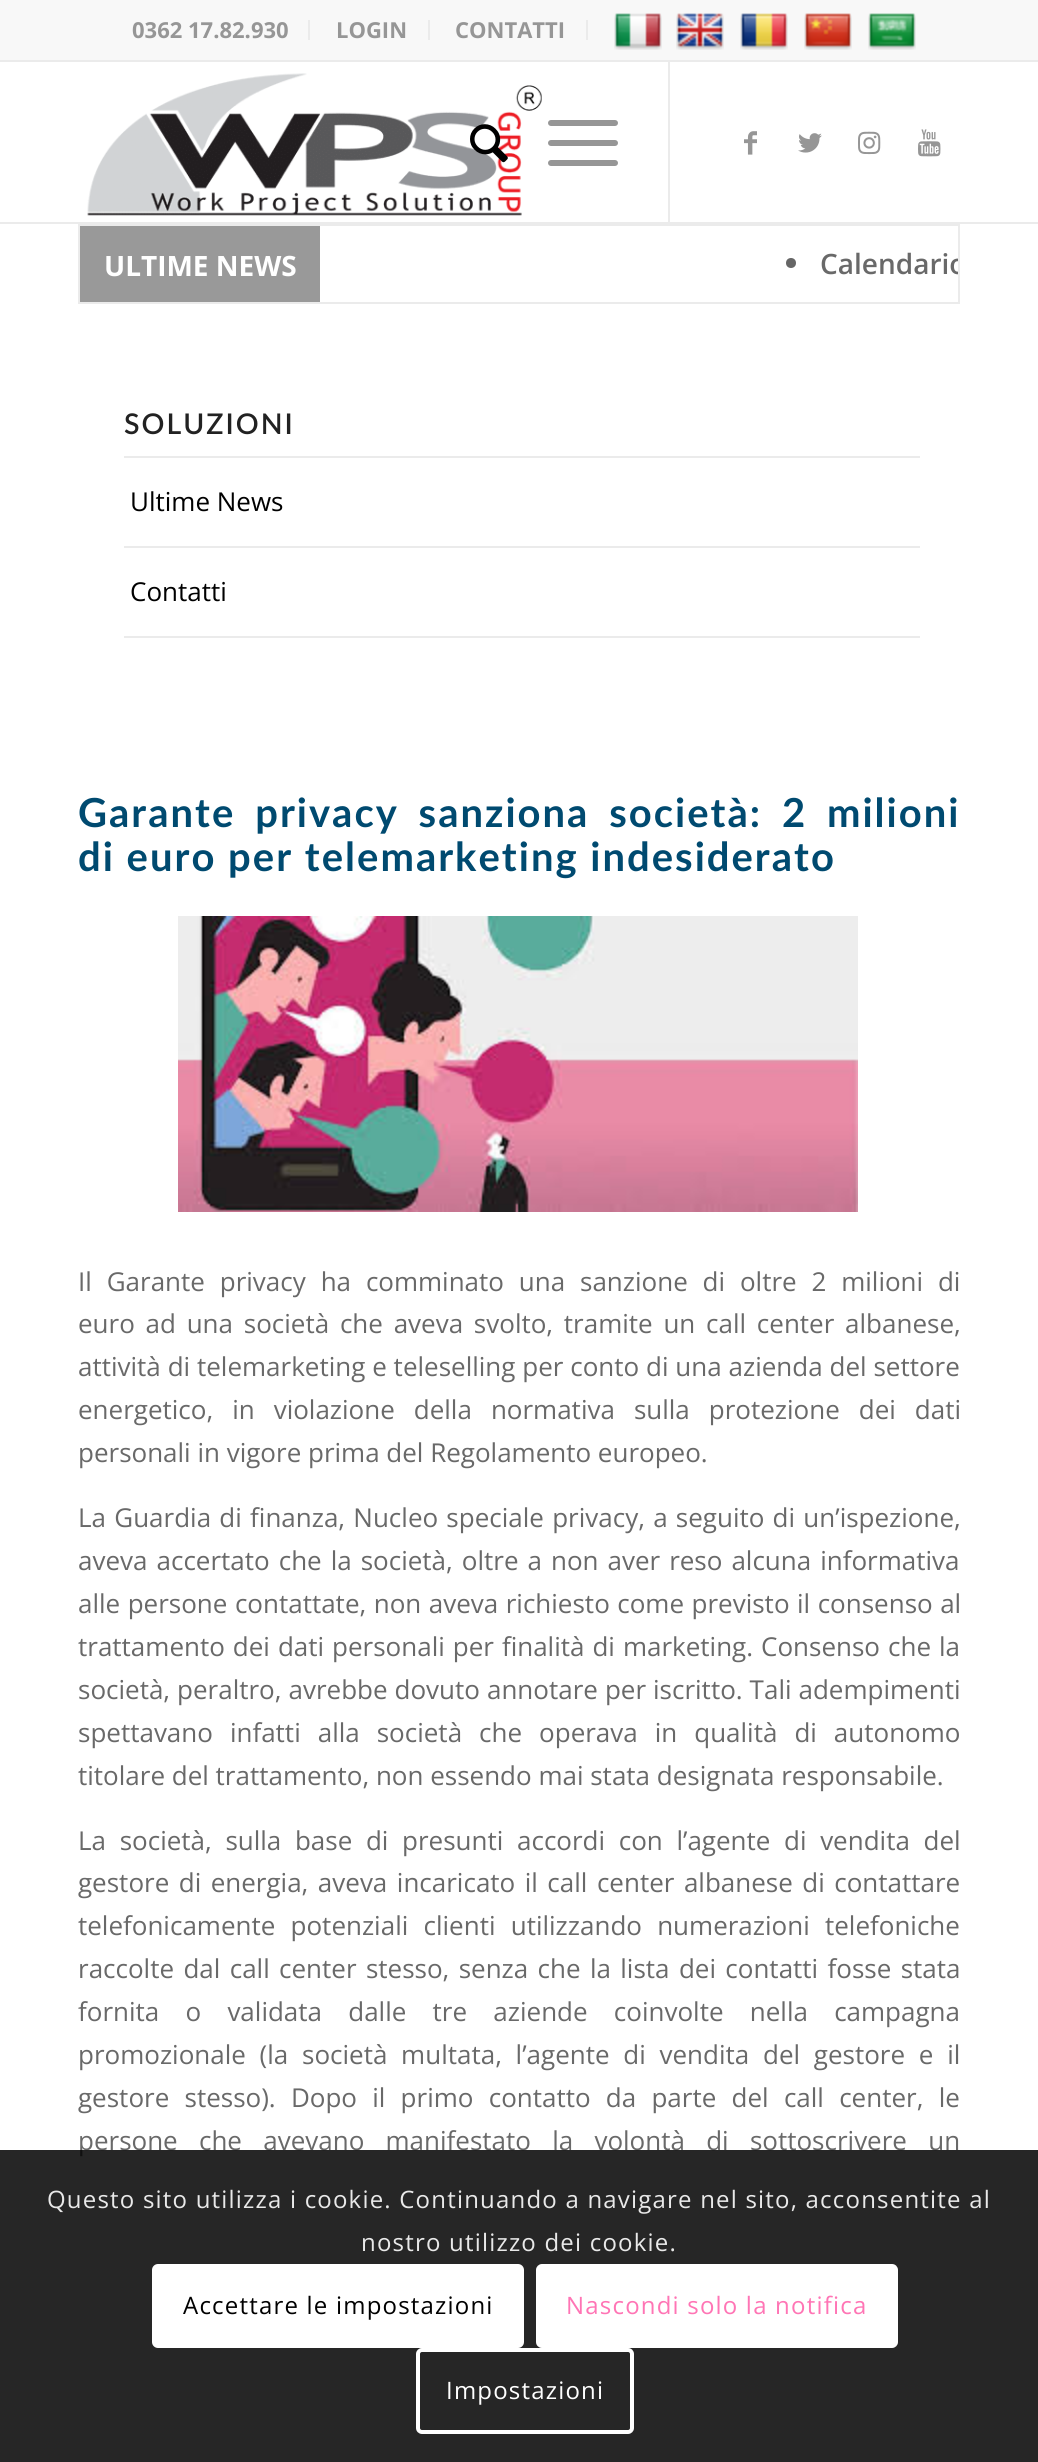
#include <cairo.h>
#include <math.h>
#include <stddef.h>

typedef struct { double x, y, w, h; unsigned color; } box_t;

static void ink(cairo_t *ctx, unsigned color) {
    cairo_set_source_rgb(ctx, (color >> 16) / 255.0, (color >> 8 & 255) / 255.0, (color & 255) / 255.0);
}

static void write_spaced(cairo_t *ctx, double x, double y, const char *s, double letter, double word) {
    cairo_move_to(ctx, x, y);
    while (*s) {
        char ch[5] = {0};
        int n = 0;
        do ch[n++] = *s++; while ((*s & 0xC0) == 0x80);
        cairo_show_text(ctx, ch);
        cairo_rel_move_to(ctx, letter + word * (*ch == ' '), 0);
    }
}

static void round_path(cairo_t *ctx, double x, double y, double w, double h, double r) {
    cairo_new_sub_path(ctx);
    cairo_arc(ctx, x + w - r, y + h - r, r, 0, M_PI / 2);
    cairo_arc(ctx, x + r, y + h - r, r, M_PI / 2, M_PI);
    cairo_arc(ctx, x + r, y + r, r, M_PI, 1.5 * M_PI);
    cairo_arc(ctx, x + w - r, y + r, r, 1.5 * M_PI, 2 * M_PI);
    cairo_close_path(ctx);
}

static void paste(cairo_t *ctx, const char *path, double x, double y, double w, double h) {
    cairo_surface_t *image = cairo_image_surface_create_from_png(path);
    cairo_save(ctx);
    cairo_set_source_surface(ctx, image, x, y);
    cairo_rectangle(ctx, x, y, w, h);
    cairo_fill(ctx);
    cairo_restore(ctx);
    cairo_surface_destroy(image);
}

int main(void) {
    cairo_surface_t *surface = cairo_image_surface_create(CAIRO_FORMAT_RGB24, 1038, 2462);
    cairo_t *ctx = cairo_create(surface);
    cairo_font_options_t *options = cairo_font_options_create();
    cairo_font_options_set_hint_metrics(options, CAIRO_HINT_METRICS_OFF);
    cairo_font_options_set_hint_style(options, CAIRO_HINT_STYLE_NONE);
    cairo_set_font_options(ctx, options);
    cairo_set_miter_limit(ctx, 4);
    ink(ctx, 0xFFFFFF);
    cairo_paint(ctx);
    {
        static const box_t items[] = {
            {0, 0, 1038, 60, 0xF8F8F8},
            {0, 60, 1038, 2, 0xEBEBEB},
            {308, 20, 2, 20, 0xEBEBEB},
        };
        for (size_t i = 0; i < sizeof items / sizeof *items; i++) {
            ink(ctx, items[i].color);
            cairo_rectangle(ctx, items[i].x, items[i].y, items[i].w, items[i].h);
            cairo_fill(ctx);
        }
    }
    cairo_select_font_face(ctx, "Open Sans", CAIRO_FONT_SLANT_NORMAL, CAIRO_FONT_WEIGHT_BOLD);
    cairo_set_font_size(ctx, 22);
    ink(ctx, 0x969696);
    cairo_move_to(ctx, 132, 38);
    cairo_show_text(ctx, "0362 17.82.930");
    ink(ctx, 0xEBEBEB);
    cairo_rectangle(ctx, 428, 20, 2, 20);
    cairo_fill(ctx);
    ink(ctx, 0x969696);
    cairo_move_to(ctx, 336, 38);
    cairo_show_text(ctx, "LOGIN");
    ink(ctx, 0xEBEBEB);
    cairo_rectangle(ctx, 586, 20, 2, 20);
    cairo_fill(ctx);
    ink(ctx, 0x969696);
    cairo_move_to(ctx, 455, 38);
    cairo_show_text(ctx, "CONTATTI");
    paste(ctx, "media/1.png", 614, 13, 48, 37);
    paste(ctx, "media/2.png", 676, 13, 48, 37);
    paste(ctx, "media/3.png", 740, 13, 48, 37);
    paste(ctx, "media/4.png", 804, 13, 48, 37);
    paste(ctx, "media/5.png", 868, 13, 48, 37);
    ink(ctx, 0xEBEBEB);
    cairo_rectangle(ctx, 0, 222, 1038, 2);
    cairo_fill(ctx);
    paste(ctx, "media/6.png", 87, 73, 455, 143);
    cairo_rectangle(ctx, 668, 62, 2, 160);
    cairo_fill(ctx);
    paste(ctx, "media/7.png", 470, 124, 38, 39);
    ink(ctx, 0x969696);
    round_path(ctx, 548, 140, 70, 6, 3);
    cairo_fill(ctx);
    round_path(ctx, 548, 120, 70, 6, 3);
    cairo_fill(ctx);
    round_path(ctx, 548, 160, 70, 6, 3);
    cairo_fill(ctx);
    paste(ctx, "media/8.png", 744, 131, 13, 24);
    paste(ctx, "media/9.png", 798, 133, 24, 20);
    paste(ctx, "media/10.png", 858, 131, 23, 24);
    paste(ctx, "media/11.png", 918, 129, 23, 28);
    cairo_rectangle(ctx, 79, 225, 880, 78);
    ink(ctx, 0xEBEBEB);
    cairo_stroke(ctx);
    ink(ctx, 0x999999);
    cairo_rectangle(ctx, 80, 226, 240, 76);
    cairo_fill(ctx);
    cairo_set_font_size(ctx, 28);
    ink(ctx, 0xFFFFFF);
    cairo_move_to(ctx, 104, 276);
    cairo_show_text(ctx, "ULTIME NEWS");
    ink(ctx, 0x666666);
    cairo_new_path(ctx);
    cairo_arc(ctx, 791, 263, 5, 0, 2 * M_PI);
    cairo_fill(ctx);
    cairo_save(ctx);
    cairo_rectangle(ctx, 340, 226, 618, 76);
    cairo_clip(ctx);
    cairo_select_font_face(ctx, "Open Sans SemiBold", CAIRO_FONT_SLANT_NORMAL, CAIRO_FONT_WEIGHT_NORMAL);
    ink(ctx, 0x696969);
    cairo_move_to(ctx, 820, 274);
    cairo_show_text(ctx, "Calendario");
    cairo_restore(ctx);
    cairo_select_font_face(ctx, "Lato SemiBold", CAIRO_FONT_SLANT_NORMAL, CAIRO_FONT_WEIGHT_NORMAL);
    cairo_set_font_size(ctx, 28.5);
    ink(ctx, 0x222222);
    write_spaced(ctx, 124, 434, "SOLUZIONI", 2, 0);
    ink(ctx, 0xEBEBEB);
    cairo_rectangle(ctx, 124, 456, 796, 2);
    cairo_fill(ctx);
    cairo_rectangle(ctx, 124, 546, 796, 2);
    cairo_fill(ctx);
    cairo_select_font_face(ctx, "Open Sans", CAIRO_FONT_SLANT_NORMAL, CAIRO_FONT_WEIGHT_NORMAL);
    cairo_set_font_size(ctx, 26);
    ink(ctx, 0x000000);
    cairo_move_to(ctx, 130, 511);
    cairo_show_text(ctx, "Ultime News");
    ink(ctx, 0xEBEBEB);
    cairo_rectangle(ctx, 124, 636, 796, 2);
    cairo_fill(ctx);
    ink(ctx, 0x000000);
    cairo_move_to(ctx, 130, 601);
    cairo_show_text(ctx, "Contatti");
    cairo_select_font_face(ctx, "Lato", CAIRO_FONT_SLANT_NORMAL, CAIRO_FONT_WEIGHT_BOLD);
    cairo_set_font_size(ctx, 40);
    ink(ctx, 0x004A70);
    write_spaced(ctx, 78, 827, "Garante privacy sanziona società: 2 milioni", 2, 8.1);
    write_spaced(ctx, 78, 871, "di euro per telemarketing indesiderato", 2, 0);
    paste(ctx, "media/12.png", 178, 916, 680, 296);
    cairo_select_font_face(ctx, "Open Sans", CAIRO_FONT_SLANT_NORMAL, CAIRO_FONT_WEIGHT_NORMAL);
    cairo_set_font_size(ctx, 26);
    ink(ctx, 0x696969);
    write_spaced(ctx, 78, 1291, "Il Garante privacy ha comminato una sanzione di oltre 2 milioni di", 0, 8.1);
    write_spaced(ctx, 78, 1333, "euro ad una società che aveva svolto, tramite un call center albanese,", 0, 4);
    write_spaced(ctx, 78, 1376, "attività di telemarketing e teleselling per conto di una azienda del settore", 0, 0.1);
    write_spaced(ctx, 78, 1419, "energetico, in violazione della normativa sulla protezione dei dati", 0, 12.25);
    cairo_move_to(ctx, 78, 1462);
    cairo_show_text(ctx, "personali in vigore prima del Regolamento europeo.");
    write_spaced(ctx, 78, 1527, "La Guardia di finanza, Nucleo speciale privacy, a seguito di un’ispezione,", 0, 1.5);
    write_spaced(ctx, 78, 1570, "aveva accertato che la società, oltre a non aver reso alcuna informativa", 0, 2.25);
    write_spaced(ctx, 78, 1613, "alle persone contattate, non aveva richiesto come previsto il consenso al", 0, 0.75);
    write_spaced(ctx, 78, 1656, "trattamento dei dati personali per finalità di marketing. Consenso che la", 0, 1.25);
    write_spaced(ctx, 78, 1699, "società, peraltro, avrebbe dovuto annotare per iscritto. Tali adempimenti", 0, 0.25);
    write_spaced(ctx, 78, 1742, "spettavano infatti alla società che operava in qualità di autonomo", 0, 10.25);
    cairo_move_to(ctx, 78, 1785);
    cairo_show_text(ctx, "titolare del trattamento, non essendo mai stata designata responsabile.");
    write_spaced(ctx, 78, 1850, "La società, sulla base di presunti accordi con l’agente di vendita del", 0, 6.9);
    write_spaced(ctx, 78, 1892, "gestore di energia, aveva incaricato il call center albanese di contattare", 0, 2.75);
    write_spaced(ctx, 78, 1935, "telefonicamente potenziali clienti utilizzando numerazioni telefoniche", 0, 8.5);
    write_spaced(ctx, 78, 1978, "raccolte dal call center stesso, senza che la lista dei contatti fosse stata", 0, 2.6);
    write_spaced(ctx, 78, 2021, "fornita o validata dalle tre aziende coinvolte nella campagna", 0, 19.5);
    write_spaced(ctx, 78, 2064, "promozionale (la società multata, l’agente di vendita del gestore e il", 0, 7);
    write_spaced(ctx, 78, 2107, "gestore stesso). Dopo il primo contatto da parte del call center, le", 0, 8.5);
    write_spaced(ctx, 78, 2150, "persone che avevano manifestato la volontà di sottoscrivere un", 0, 14.5);
    cairo_set_source_rgba(ctx, 0, 0, 0, 0.85);
    cairo_rectangle(ctx, 0, 2150, 1038, 312);
    cairo_fill(ctx);
    cairo_set_font_size(ctx, 24);
    ink(ctx, 0xE9E9E9);
    write_spaced(ctx, 47, 2208, "Questo sito utilizza i cookie. Continuando a navigare nel sito, acconsentite al", 1.2, 0);
    write_spaced(ctx, 361, 2251, "nostro utilizzo dei cookie.", 1.2, 0);
    ink(ctx, 0xFFFFFF);
    round_path(ctx, 152, 2264, 372, 84, 6);
    cairo_fill(ctx);
    ink(ctx, 0x000000);
    write_spaced(ctx, 183, 2314, "Accettare le impostazioni", 1.2, 0);
    ink(ctx, 0xFFFFFF);
    round_path(ctx, 538, 2266, 358, 80, 4);
    cairo_fill_preserve(ctx);
    cairo_set_line_width(ctx, 4);
    cairo_stroke(ctx);
    ink(ctx, 0xFF75B5);
    write_spaced(ctx, 566, 2314, "Nascondi solo la notifica", 1.2, 0);
    round_path(ctx, 418, 2350, 214, 82, 4);
    ink(ctx, 0xFFFFFF);
    cairo_stroke(ctx);
    write_spaced(ctx, 446, 2399, "Impostazioni", 1.2, 0);
    cairo_surface_write_to_png(surface, "image.png");
    cairo_font_options_destroy(options);
    cairo_destroy(ctx);
    cairo_surface_destroy(surface);
    return 0;
}
